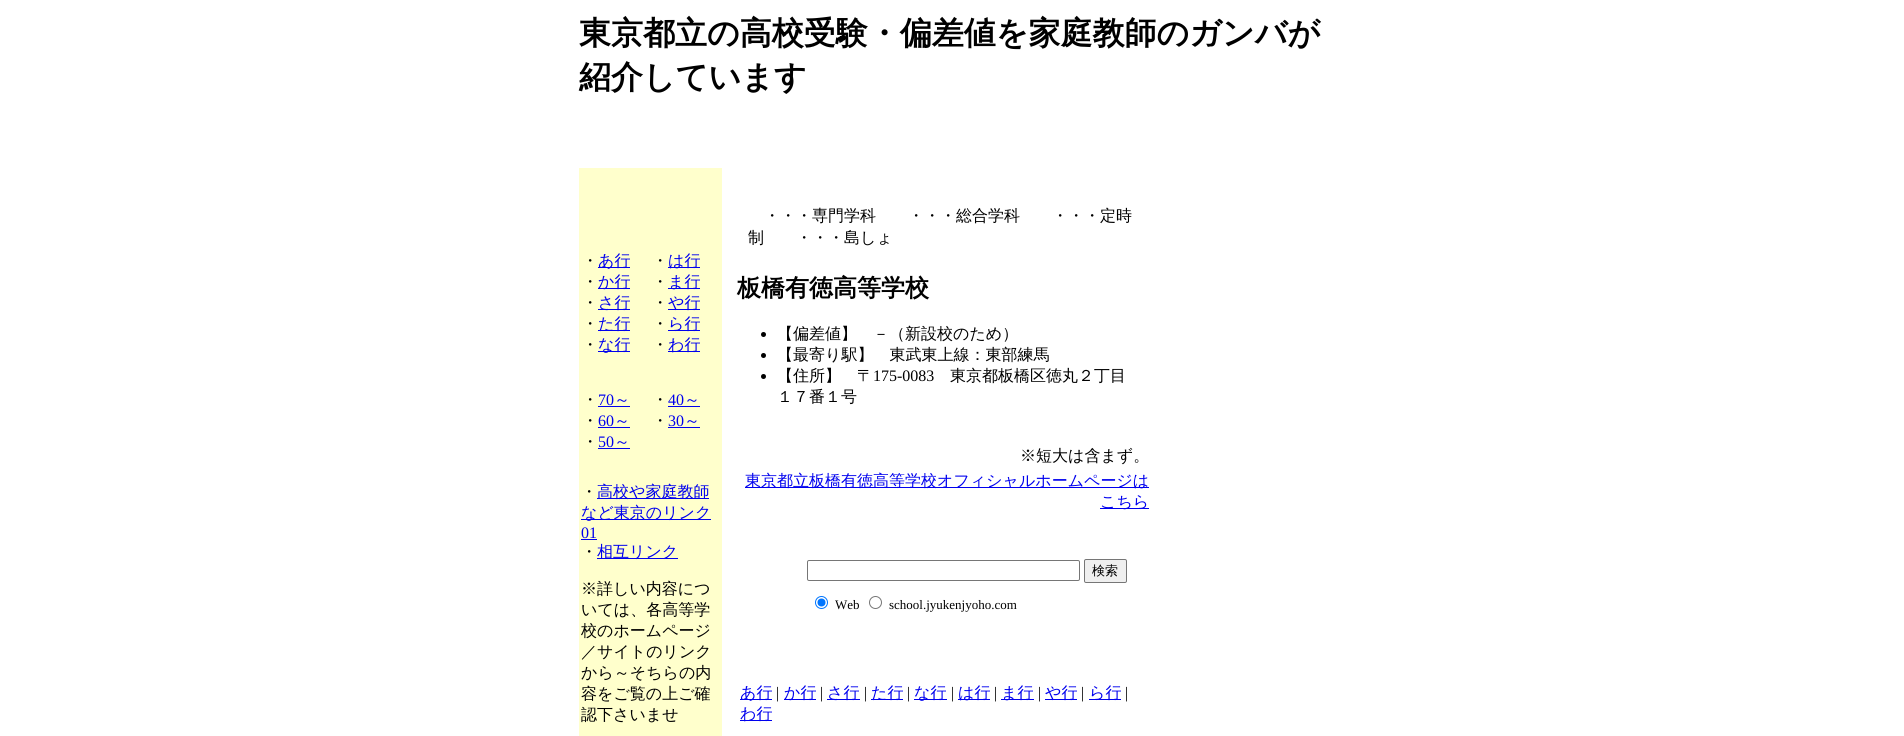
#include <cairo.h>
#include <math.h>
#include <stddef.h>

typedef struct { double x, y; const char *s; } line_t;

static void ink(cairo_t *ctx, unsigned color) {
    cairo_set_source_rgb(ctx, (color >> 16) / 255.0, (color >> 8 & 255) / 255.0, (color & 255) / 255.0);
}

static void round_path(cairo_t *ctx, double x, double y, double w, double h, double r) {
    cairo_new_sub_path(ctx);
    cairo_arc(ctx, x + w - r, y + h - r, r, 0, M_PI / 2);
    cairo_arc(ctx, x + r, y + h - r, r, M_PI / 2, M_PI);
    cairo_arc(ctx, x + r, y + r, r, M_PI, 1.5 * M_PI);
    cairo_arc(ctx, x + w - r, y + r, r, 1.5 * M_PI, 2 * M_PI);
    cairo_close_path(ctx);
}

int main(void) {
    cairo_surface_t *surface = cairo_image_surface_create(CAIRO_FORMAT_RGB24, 1904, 736);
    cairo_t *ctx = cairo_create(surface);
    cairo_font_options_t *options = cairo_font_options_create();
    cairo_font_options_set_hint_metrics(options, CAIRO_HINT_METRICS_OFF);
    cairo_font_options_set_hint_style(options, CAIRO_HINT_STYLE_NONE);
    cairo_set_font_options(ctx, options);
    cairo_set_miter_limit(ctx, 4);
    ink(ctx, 0xFFFFFF);
    cairo_paint(ctx);
    cairo_select_font_face(ctx, "WenQuanYi Zen Hei", CAIRO_FONT_SLANT_NORMAL, CAIRO_FONT_WEIGHT_BOLD);
    cairo_set_font_size(ctx, 32);
    ink(ctx, 0x000000);
    cairo_move_to(ctx, 579, 44);
    cairo_show_text(ctx, "東京都立の高校受験・偏差値を家庭教師のガンバが");
    cairo_move_to(ctx, 579, 88);
    cairo_show_text(ctx, "紹介しています");
    ink(ctx, 0xFFFFCC);
    cairo_rectangle(ctx, 579, 168, 143, 568);
    cairo_fill(ctx);
    cairo_select_font_face(ctx, "WenQuanYi Zen Hei Medium", CAIRO_FONT_SLANT_NORMAL, CAIRO_FONT_WEIGHT_NORMAL);
    cairo_set_font_size(ctx, 16);
    ink(ctx, 0x000000);
    cairo_move_to(ctx, 582, 266);
    cairo_show_text(ctx, "・");
    ink(ctx, 0x0000EE);
    cairo_rectangle(ctx, 598, 267, 32, 1);
    cairo_fill(ctx);
    cairo_move_to(ctx, 598, 266);
    cairo_show_text(ctx, "あ行");
    ink(ctx, 0x000000);
    cairo_move_to(ctx, 582, 287);
    cairo_show_text(ctx, "・");
    ink(ctx, 0x0000EE);
    cairo_rectangle(ctx, 598, 288, 32, 1);
    cairo_fill(ctx);
    cairo_move_to(ctx, 598, 287);
    cairo_show_text(ctx, "か行");
    ink(ctx, 0x000000);
    cairo_move_to(ctx, 582, 308);
    cairo_show_text(ctx, "・");
    ink(ctx, 0x0000EE);
    cairo_rectangle(ctx, 598, 309, 32, 1);
    cairo_fill(ctx);
    cairo_move_to(ctx, 598, 308);
    cairo_show_text(ctx, "さ行");
    ink(ctx, 0x000000);
    cairo_move_to(ctx, 582, 329);
    cairo_show_text(ctx, "・");
    ink(ctx, 0x0000EE);
    cairo_rectangle(ctx, 598, 330, 32, 1);
    cairo_fill(ctx);
    cairo_move_to(ctx, 598, 329);
    cairo_show_text(ctx, "た行");
    ink(ctx, 0x000000);
    cairo_move_to(ctx, 582, 350);
    cairo_show_text(ctx, "・");
    ink(ctx, 0x0000EE);
    cairo_rectangle(ctx, 598, 351, 32, 1);
    cairo_fill(ctx);
    cairo_move_to(ctx, 598, 350);
    cairo_show_text(ctx, "な行");
    ink(ctx, 0x000000);
    cairo_move_to(ctx, 652, 266);
    cairo_show_text(ctx, "・");
    ink(ctx, 0x0000EE);
    cairo_rectangle(ctx, 668, 267, 32, 1);
    cairo_fill(ctx);
    cairo_move_to(ctx, 668, 266);
    cairo_show_text(ctx, "は行");
    ink(ctx, 0x000000);
    cairo_move_to(ctx, 652, 287);
    cairo_show_text(ctx, "・");
    ink(ctx, 0x0000EE);
    cairo_rectangle(ctx, 668, 288, 32, 1);
    cairo_fill(ctx);
    cairo_move_to(ctx, 668, 287);
    cairo_show_text(ctx, "ま行");
    ink(ctx, 0x000000);
    cairo_move_to(ctx, 652, 308);
    cairo_show_text(ctx, "・");
    ink(ctx, 0x0000EE);
    cairo_rectangle(ctx, 668, 309, 32, 1);
    cairo_fill(ctx);
    cairo_move_to(ctx, 668, 308);
    cairo_show_text(ctx, "や行");
    ink(ctx, 0x000000);
    cairo_move_to(ctx, 652, 329);
    cairo_show_text(ctx, "・");
    ink(ctx, 0x0000EE);
    cairo_rectangle(ctx, 668, 330, 32, 1);
    cairo_fill(ctx);
    cairo_move_to(ctx, 668, 329);
    cairo_show_text(ctx, "ら行");
    ink(ctx, 0x000000);
    cairo_move_to(ctx, 652, 350);
    cairo_show_text(ctx, "・");
    ink(ctx, 0x0000EE);
    cairo_rectangle(ctx, 668, 351, 32, 1);
    cairo_fill(ctx);
    cairo_move_to(ctx, 668, 350);
    cairo_show_text(ctx, "わ行");
    ink(ctx, 0x000000);
    cairo_move_to(ctx, 582, 405);
    cairo_show_text(ctx, "・");
    cairo_select_font_face(ctx, "Liberation Serif", CAIRO_FONT_SLANT_NORMAL, CAIRO_FONT_WEIGHT_NORMAL);
    ink(ctx, 0x0000EE);
    cairo_move_to(ctx, 598, 405);
    cairo_show_text(ctx, "70");
    cairo_select_font_face(ctx, "WenQuanYi Zen Hei Medium", CAIRO_FONT_SLANT_NORMAL, CAIRO_FONT_WEIGHT_NORMAL);
    cairo_move_to(ctx, 614, 405);
    cairo_show_text(ctx, "～");
    cairo_rectangle(ctx, 598, 406, 32, 1);
    cairo_fill(ctx);
    ink(ctx, 0x000000);
    cairo_move_to(ctx, 582, 426);
    cairo_show_text(ctx, "・");
    cairo_select_font_face(ctx, "Liberation Serif", CAIRO_FONT_SLANT_NORMAL, CAIRO_FONT_WEIGHT_NORMAL);
    ink(ctx, 0x0000EE);
    cairo_move_to(ctx, 598, 426);
    cairo_show_text(ctx, "60");
    cairo_select_font_face(ctx, "WenQuanYi Zen Hei Medium", CAIRO_FONT_SLANT_NORMAL, CAIRO_FONT_WEIGHT_NORMAL);
    cairo_move_to(ctx, 614, 426);
    cairo_show_text(ctx, "～");
    cairo_rectangle(ctx, 598, 427, 32, 1);
    cairo_fill(ctx);
    ink(ctx, 0x000000);
    cairo_move_to(ctx, 582, 447);
    cairo_show_text(ctx, "・");
    cairo_select_font_face(ctx, "Liberation Serif", CAIRO_FONT_SLANT_NORMAL, CAIRO_FONT_WEIGHT_NORMAL);
    ink(ctx, 0x0000EE);
    cairo_move_to(ctx, 598, 447);
    cairo_show_text(ctx, "50");
    cairo_select_font_face(ctx, "WenQuanYi Zen Hei Medium", CAIRO_FONT_SLANT_NORMAL, CAIRO_FONT_WEIGHT_NORMAL);
    cairo_move_to(ctx, 614, 447);
    cairo_show_text(ctx, "～");
    cairo_rectangle(ctx, 598, 448, 32, 1);
    cairo_fill(ctx);
    ink(ctx, 0x000000);
    cairo_move_to(ctx, 652, 405);
    cairo_show_text(ctx, "・");
    cairo_select_font_face(ctx, "Liberation Serif", CAIRO_FONT_SLANT_NORMAL, CAIRO_FONT_WEIGHT_NORMAL);
    ink(ctx, 0x0000EE);
    cairo_move_to(ctx, 668, 405);
    cairo_show_text(ctx, "40");
    cairo_select_font_face(ctx, "WenQuanYi Zen Hei Medium", CAIRO_FONT_SLANT_NORMAL, CAIRO_FONT_WEIGHT_NORMAL);
    cairo_move_to(ctx, 684, 405);
    cairo_show_text(ctx, "～");
    cairo_rectangle(ctx, 668, 406, 32, 1);
    cairo_fill(ctx);
    ink(ctx, 0x000000);
    cairo_move_to(ctx, 652, 426);
    cairo_show_text(ctx, "・");
    cairo_select_font_face(ctx, "Liberation Serif", CAIRO_FONT_SLANT_NORMAL, CAIRO_FONT_WEIGHT_NORMAL);
    ink(ctx, 0x0000EE);
    cairo_move_to(ctx, 668, 426);
    cairo_show_text(ctx, "30");
    cairo_select_font_face(ctx, "WenQuanYi Zen Hei Medium", CAIRO_FONT_SLANT_NORMAL, CAIRO_FONT_WEIGHT_NORMAL);
    cairo_move_to(ctx, 684, 426);
    cairo_show_text(ctx, "～");
    cairo_rectangle(ctx, 668, 427, 32, 1);
    cairo_fill(ctx);
    ink(ctx, 0x000000);
    cairo_move_to(ctx, 581, 497);
    cairo_show_text(ctx, "・");
    ink(ctx, 0x0000EE);
    cairo_rectangle(ctx, 597, 498, 112, 1);
    cairo_fill(ctx);
    cairo_move_to(ctx, 597, 497);
    cairo_show_text(ctx, "高校や家庭教師");
    cairo_rectangle(ctx, 581, 519, 130, 1);
    cairo_fill(ctx);
    cairo_move_to(ctx, 581, 518);
    cairo_show_text(ctx, "など東京のリンク");
    cairo_select_font_face(ctx, "Liberation Serif", CAIRO_FONT_SLANT_NORMAL, CAIRO_FONT_WEIGHT_NORMAL);
    cairo_move_to(ctx, 581, 538);
    cairo_show_text(ctx, "01");
    cairo_rectangle(ctx, 581, 539, 16, 1);
    cairo_fill(ctx);
    cairo_select_font_face(ctx, "WenQuanYi Zen Hei Medium", CAIRO_FONT_SLANT_NORMAL, CAIRO_FONT_WEIGHT_NORMAL);
    ink(ctx, 0x000000);
    cairo_move_to(ctx, 581, 557);
    cairo_show_text(ctx, "・");
    ink(ctx, 0x0000EE);
    cairo_rectangle(ctx, 597, 558, 81, 1);
    cairo_fill(ctx);
    cairo_move_to(ctx, 597, 557);
    cairo_show_text(ctx, "相互リンク");
    ink(ctx, 0x000000);
    {
        static const line_t items[] = {
            {581, 594, "※詳しい内容につ"},
            {581, 615, "いては、各高等学"},
            {581, 636, "校のホームページ"},
            {581, 657, "／サイトのリンク"},
            {581, 678, "から～そちらの内"},
            {581, 699, "容をご覧の上ご確"},
            {581, 720, "認下さいませ"},
            {764, 221, "・・・専門学科"},
            {908, 221, "・・・総合学科"},
            {1052, 221, "・・・定時"},
            {748, 243, "制"},
            {796, 243, "・・・島しょ"},
        };
        for (size_t i = 0; i < sizeof items / sizeof *items; i++) {
            cairo_move_to(ctx, items[i].x, items[i].y);
            cairo_show_text(ctx, items[i].s);
        }
    }
    cairo_select_font_face(ctx, "WenQuanYi Zen Hei", CAIRO_FONT_SLANT_NORMAL, CAIRO_FONT_WEIGHT_BOLD);
    cairo_set_font_size(ctx, 24);
    cairo_move_to(ctx, 737, 296);
    cairo_show_text(ctx, "板橋有徳高等学校");
    cairo_new_path(ctx);
    cairo_arc(ctx, 763.5, 334.5, 2.5, 0, 2 * M_PI);
    cairo_fill(ctx);
    cairo_select_font_face(ctx, "WenQuanYi Zen Hei Medium", CAIRO_FONT_SLANT_NORMAL, CAIRO_FONT_WEIGHT_NORMAL);
    cairo_set_font_size(ctx, 16);
    cairo_move_to(ctx, 777, 339);
    cairo_show_text(ctx, "【偏差値】　－（新設校のため）");
    cairo_new_path(ctx);
    cairo_arc(ctx, 763.5, 355.5, 2.5, 0, 2 * M_PI);
    cairo_fill(ctx);
    cairo_move_to(ctx, 777, 360);
    cairo_show_text(ctx, "【最寄り駅】　東武東上線：東部練馬");
    cairo_new_path(ctx);
    cairo_arc(ctx, 763.5, 376.5, 2.5, 0, 2 * M_PI);
    cairo_fill(ctx);
    cairo_move_to(ctx, 777, 381);
    cairo_show_text(ctx, "【住所】　〒");
    cairo_select_font_face(ctx, "Liberation Serif", CAIRO_FONT_SLANT_NORMAL, CAIRO_FONT_WEIGHT_NORMAL);
    cairo_move_to(ctx, 873, 381);
    cairo_show_text(ctx, "175-0083");
    cairo_select_font_face(ctx, "WenQuanYi Zen Hei Medium", CAIRO_FONT_SLANT_NORMAL, CAIRO_FONT_WEIGHT_NORMAL);
    {
        static const line_t items[] = {
            {950, 381, "東京都板橋区徳丸２丁目"},
            {777, 402, "１７番１号"},
            {1020, 461, "※短大は含まず。"},
        };
        for (size_t i = 0; i < sizeof items / sizeof *items; i++) {
            cairo_move_to(ctx, items[i].x, items[i].y);
            cairo_show_text(ctx, items[i].s);
        }
    }
    ink(ctx, 0x0000EE);
    cairo_rectangle(ctx, 745, 487, 404, 1);
    cairo_fill(ctx);
    cairo_move_to(ctx, 745, 486);
    cairo_show_text(ctx, "東京都立板橋有徳高等学校オフィシャルホームページは");
    cairo_rectangle(ctx, 1100, 508, 49, 1);
    cairo_fill(ctx);
    cairo_move_to(ctx, 1100, 507);
    cairo_show_text(ctx, "こちら");
    round_path(ctx, 807.5, 560.5, 272, 20, 1.5);
    ink(ctx, 0x767676);
    cairo_set_line_width(ctx, 1);
    cairo_stroke(ctx);
    ink(ctx, 0xEFEFEF);
    round_path(ctx, 1084.5, 559.5, 42, 23, 1.5);
    cairo_fill_preserve(ctx);
    ink(ctx, 0x767676);
    cairo_stroke(ctx);
    cairo_set_font_size(ctx, 13);
    ink(ctx, 0x000000);
    cairo_move_to(ctx, 1092, 575);
    cairo_show_text(ctx, "検索");
    cairo_new_path(ctx);
    cairo_arc(ctx, 821.5, 602.5, 6, 0, 2 * M_PI);
    ink(ctx, 0x0075FF);
    cairo_stroke(ctx);
    cairo_arc(ctx, 821.5, 602.5, 4, 0, 2 * M_PI);
    cairo_fill(ctx);
    cairo_select_font_face(ctx, "Liberation Serif", CAIRO_FONT_SLANT_NORMAL, CAIRO_FONT_WEIGHT_NORMAL);
    ink(ctx, 0x000000);
    cairo_move_to(ctx, 835, 609);
    cairo_show_text(ctx, "Web");
    cairo_new_path(ctx);
    cairo_arc(ctx, 875.5, 602.5, 6, 0, 2 * M_PI);
    ink(ctx, 0x767676);
    cairo_stroke(ctx);
    ink(ctx, 0x000000);
    cairo_move_to(ctx, 889, 609);
    cairo_show_text(ctx, "school.jyukenjyoho.com");
    ink(ctx, 0x0000EE);
    cairo_rectangle(ctx, 740, 699, 32, 1);
    cairo_fill(ctx);
    cairo_select_font_face(ctx, "WenQuanYi Zen Hei Medium", CAIRO_FONT_SLANT_NORMAL, CAIRO_FONT_WEIGHT_NORMAL);
    cairo_set_font_size(ctx, 16);
    cairo_move_to(ctx, 740, 698);
    cairo_show_text(ctx, "あ行");
    cairo_select_font_face(ctx, "Liberation Serif", CAIRO_FONT_SLANT_NORMAL, CAIRO_FONT_WEIGHT_NORMAL);
    ink(ctx, 0x000000);
    cairo_move_to(ctx, 776, 698);
    cairo_show_text(ctx, "|");
    ink(ctx, 0x0000EE);
    cairo_rectangle(ctx, 784, 699, 32, 1);
    cairo_fill(ctx);
    cairo_select_font_face(ctx, "WenQuanYi Zen Hei Medium", CAIRO_FONT_SLANT_NORMAL, CAIRO_FONT_WEIGHT_NORMAL);
    cairo_move_to(ctx, 784, 698);
    cairo_show_text(ctx, "か行");
    cairo_select_font_face(ctx, "Liberation Serif", CAIRO_FONT_SLANT_NORMAL, CAIRO_FONT_WEIGHT_NORMAL);
    ink(ctx, 0x000000);
    cairo_move_to(ctx, 820, 698);
    cairo_show_text(ctx, "|");
    ink(ctx, 0x0000EE);
    cairo_rectangle(ctx, 827, 699, 33, 1);
    cairo_fill(ctx);
    cairo_select_font_face(ctx, "WenQuanYi Zen Hei Medium", CAIRO_FONT_SLANT_NORMAL, CAIRO_FONT_WEIGHT_NORMAL);
    cairo_move_to(ctx, 827, 698);
    cairo_show_text(ctx, "さ行");
    cairo_select_font_face(ctx, "Liberation Serif", CAIRO_FONT_SLANT_NORMAL, CAIRO_FONT_WEIGHT_NORMAL);
    ink(ctx, 0x000000);
    cairo_move_to(ctx, 864, 698);
    cairo_show_text(ctx, "|");
    ink(ctx, 0x0000EE);
    cairo_rectangle(ctx, 871, 699, 32, 1);
    cairo_fill(ctx);
    cairo_select_font_face(ctx, "WenQuanYi Zen Hei Medium", CAIRO_FONT_SLANT_NORMAL, CAIRO_FONT_WEIGHT_NORMAL);
    cairo_move_to(ctx, 871, 698);
    cairo_show_text(ctx, "た行");
    cairo_select_font_face(ctx, "Liberation Serif", CAIRO_FONT_SLANT_NORMAL, CAIRO_FONT_WEIGHT_NORMAL);
    ink(ctx, 0x000000);
    cairo_move_to(ctx, 907, 698);
    cairo_show_text(ctx, "|");
    ink(ctx, 0x0000EE);
    cairo_rectangle(ctx, 914, 699, 33, 1);
    cairo_fill(ctx);
    cairo_select_font_face(ctx, "WenQuanYi Zen Hei Medium", CAIRO_FONT_SLANT_NORMAL, CAIRO_FONT_WEIGHT_NORMAL);
    cairo_move_to(ctx, 914, 698);
    cairo_show_text(ctx, "な行");
    cairo_select_font_face(ctx, "Liberation Serif", CAIRO_FONT_SLANT_NORMAL, CAIRO_FONT_WEIGHT_NORMAL);
    ink(ctx, 0x000000);
    cairo_move_to(ctx, 951, 698);
    cairo_show_text(ctx, "|");
    ink(ctx, 0x0000EE);
    cairo_rectangle(ctx, 958, 699, 32, 1);
    cairo_fill(ctx);
    cairo_select_font_face(ctx, "WenQuanYi Zen Hei Medium", CAIRO_FONT_SLANT_NORMAL, CAIRO_FONT_WEIGHT_NORMAL);
    cairo_move_to(ctx, 958, 698);
    cairo_show_text(ctx, "は行");
    cairo_select_font_face(ctx, "Liberation Serif", CAIRO_FONT_SLANT_NORMAL, CAIRO_FONT_WEIGHT_NORMAL);
    ink(ctx, 0x000000);
    cairo_move_to(ctx, 994, 698);
    cairo_show_text(ctx, "|");
    ink(ctx, 0x0000EE);
    cairo_rectangle(ctx, 1001, 699, 33, 1);
    cairo_fill(ctx);
    cairo_select_font_face(ctx, "WenQuanYi Zen Hei Medium", CAIRO_FONT_SLANT_NORMAL, CAIRO_FONT_WEIGHT_NORMAL);
    cairo_move_to(ctx, 1001, 698);
    cairo_show_text(ctx, "ま行");
    cairo_select_font_face(ctx, "Liberation Serif", CAIRO_FONT_SLANT_NORMAL, CAIRO_FONT_WEIGHT_NORMAL);
    ink(ctx, 0x000000);
    cairo_move_to(ctx, 1038, 698);
    cairo_show_text(ctx, "|");
    ink(ctx, 0x0000EE);
    cairo_rectangle(ctx, 1045, 699, 32, 1);
    cairo_fill(ctx);
    cairo_select_font_face(ctx, "WenQuanYi Zen Hei Medium", CAIRO_FONT_SLANT_NORMAL, CAIRO_FONT_WEIGHT_NORMAL);
    cairo_move_to(ctx, 1045, 698);
    cairo_show_text(ctx, "や行");
    cairo_select_font_face(ctx, "Liberation Serif", CAIRO_FONT_SLANT_NORMAL, CAIRO_FONT_WEIGHT_NORMAL);
    ink(ctx, 0x000000);
    cairo_move_to(ctx, 1081, 698);
    cairo_show_text(ctx, "|");
    ink(ctx, 0x0000EE);
    cairo_rectangle(ctx, 1089, 699, 32, 1);
    cairo_fill(ctx);
    cairo_select_font_face(ctx, "WenQuanYi Zen Hei Medium", CAIRO_FONT_SLANT_NORMAL, CAIRO_FONT_WEIGHT_NORMAL);
    cairo_move_to(ctx, 1089, 698);
    cairo_show_text(ctx, "ら行");
    cairo_select_font_face(ctx, "Liberation Serif", CAIRO_FONT_SLANT_NORMAL, CAIRO_FONT_WEIGHT_NORMAL);
    ink(ctx, 0x000000);
    cairo_move_to(ctx, 1125, 698);
    cairo_show_text(ctx, "|");
    ink(ctx, 0x0000EE);
    cairo_rectangle(ctx, 740, 720, 32, 1);
    cairo_fill(ctx);
    cairo_select_font_face(ctx, "WenQuanYi Zen Hei Medium", CAIRO_FONT_SLANT_NORMAL, CAIRO_FONT_WEIGHT_NORMAL);
    cairo_move_to(ctx, 740, 719);
    cairo_show_text(ctx, "わ行");
    cairo_surface_write_to_png(surface, "image.png");
    cairo_font_options_destroy(options);
    cairo_destroy(ctx);
    cairo_surface_destroy(surface);
    return 0;
}
